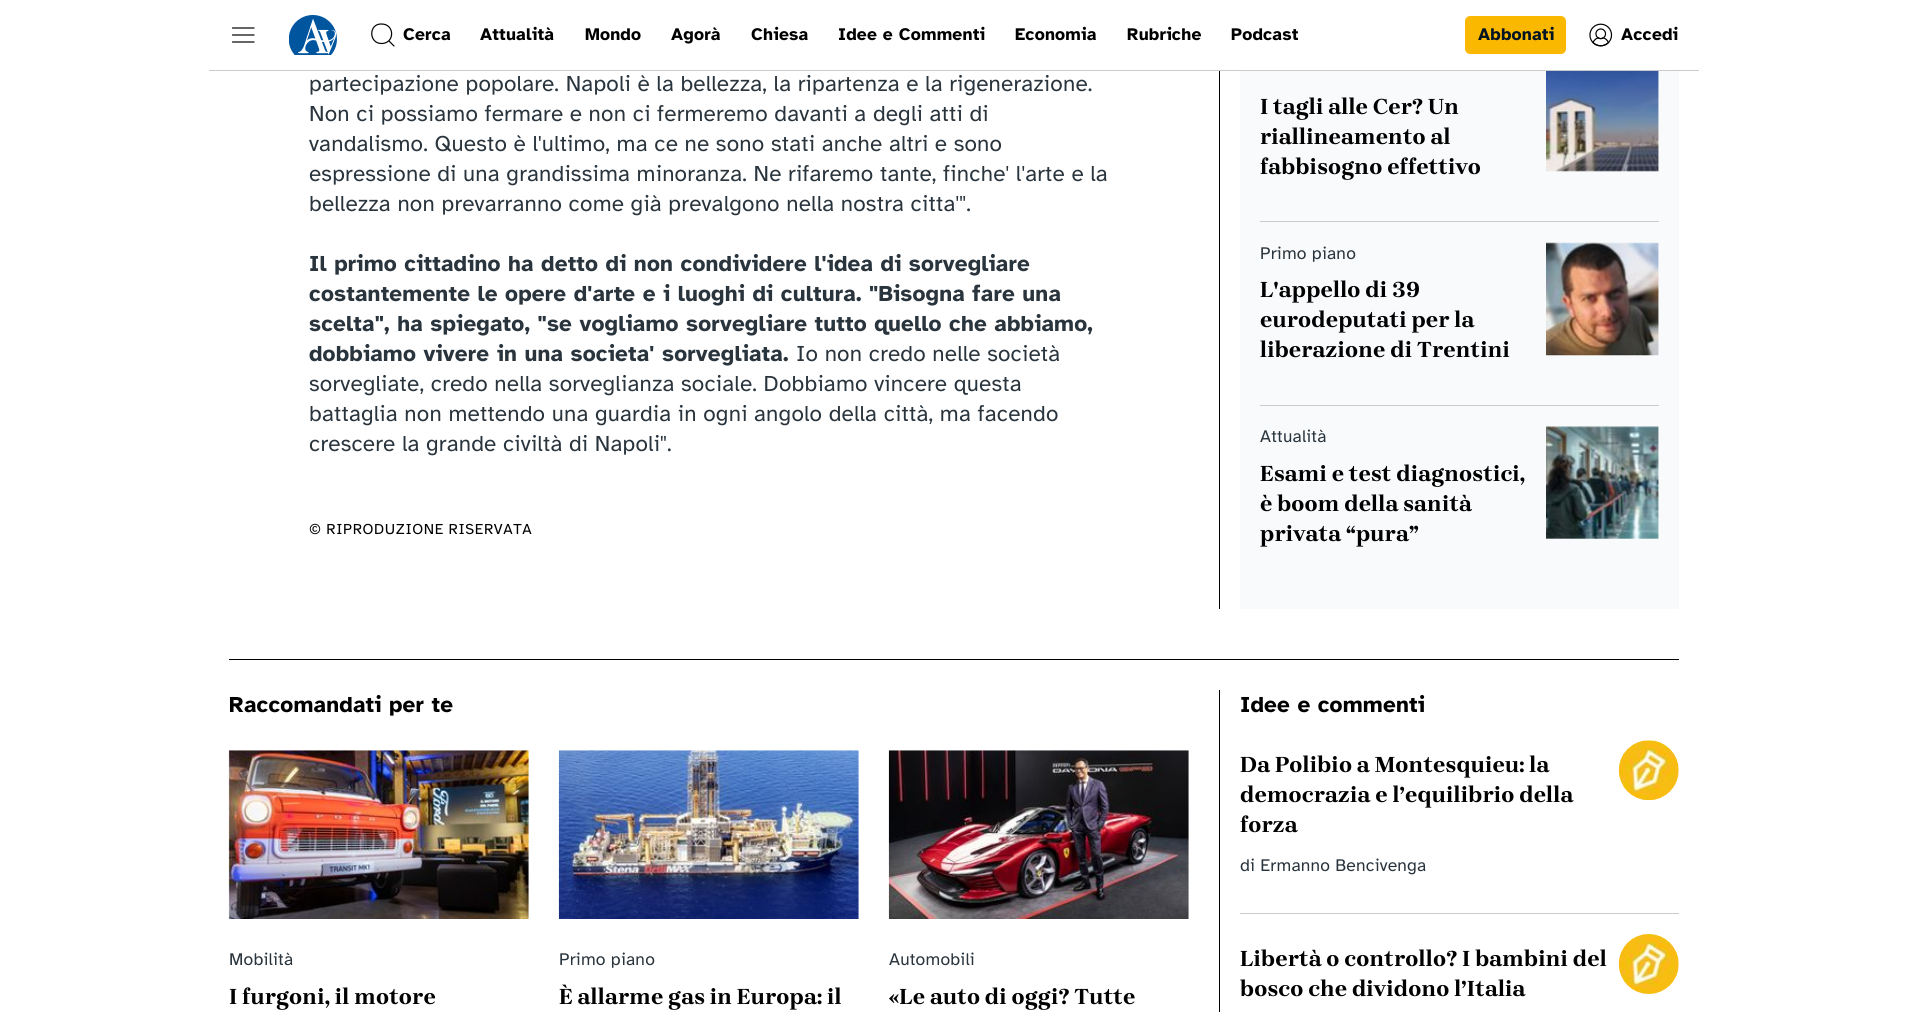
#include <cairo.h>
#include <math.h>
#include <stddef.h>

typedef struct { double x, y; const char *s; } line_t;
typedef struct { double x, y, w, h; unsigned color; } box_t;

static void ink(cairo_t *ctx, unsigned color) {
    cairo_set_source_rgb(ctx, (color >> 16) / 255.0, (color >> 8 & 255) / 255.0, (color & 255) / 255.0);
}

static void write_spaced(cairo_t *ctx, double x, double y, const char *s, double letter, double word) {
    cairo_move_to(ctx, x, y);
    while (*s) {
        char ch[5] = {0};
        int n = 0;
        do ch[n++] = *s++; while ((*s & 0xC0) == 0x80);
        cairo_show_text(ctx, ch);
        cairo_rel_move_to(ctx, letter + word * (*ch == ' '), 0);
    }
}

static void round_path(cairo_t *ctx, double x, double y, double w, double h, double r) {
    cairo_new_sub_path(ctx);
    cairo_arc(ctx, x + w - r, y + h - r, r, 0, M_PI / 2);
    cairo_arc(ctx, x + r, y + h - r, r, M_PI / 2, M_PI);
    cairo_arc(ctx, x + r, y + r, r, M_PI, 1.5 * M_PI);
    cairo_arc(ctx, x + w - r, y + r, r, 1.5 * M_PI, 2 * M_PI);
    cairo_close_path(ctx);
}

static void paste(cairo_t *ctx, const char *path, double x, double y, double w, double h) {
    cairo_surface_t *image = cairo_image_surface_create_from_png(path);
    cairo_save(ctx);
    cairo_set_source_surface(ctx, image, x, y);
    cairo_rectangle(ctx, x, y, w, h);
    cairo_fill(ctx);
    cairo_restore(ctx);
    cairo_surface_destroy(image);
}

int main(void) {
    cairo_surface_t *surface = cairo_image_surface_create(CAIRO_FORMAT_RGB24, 1907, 1012);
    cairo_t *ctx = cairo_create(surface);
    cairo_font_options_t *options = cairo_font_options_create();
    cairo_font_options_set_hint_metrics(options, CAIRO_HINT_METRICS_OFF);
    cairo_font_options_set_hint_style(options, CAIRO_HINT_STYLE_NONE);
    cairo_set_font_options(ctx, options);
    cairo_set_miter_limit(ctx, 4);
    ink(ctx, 0xFFFFFF);
    cairo_paint(ctx);
    ink(ctx, 0xC8CACD);
    cairo_rectangle(ctx, 209, 70, 1490, 1);
    cairo_fill(ctx);
    cairo_new_path(ctx);
    cairo_move_to(ctx, 232.5, 35);
    cairo_line_to(ctx, 254, 35);
    cairo_move_to(ctx, 232.5, 28);
    cairo_line_to(ctx, 254, 28);
    cairo_move_to(ctx, 232.5, 42);
    cairo_line_to(ctx, 254, 42);
    ink(ctx, 0x000000);
    cairo_set_line_width(ctx, 1.2);
    cairo_set_line_cap(ctx, CAIRO_LINE_CAP_ROUND);
    cairo_set_line_join(ctx, CAIRO_LINE_JOIN_ROUND);
    cairo_stroke(ctx);
    paste(ctx, "media/1.png", 289, 15, 48, 40);
    cairo_new_path(ctx);
    cairo_move_to(ctx, 394, 46);
    cairo_line_to(ctx, 389, 41);
    cairo_move_to(ctx, 381.5, 43.5);
    cairo_curve_to(ctx, 395, 43.5, 395, 24, 381.5, 24);
    cairo_curve_to(ctx, 368.5, 23.5, 368.5, 43.5, 381.5, 43.5);
    cairo_close_path(ctx);
    cairo_stroke(ctx);
    cairo_select_font_face(ctx, "Atkinson Hyperlegible", CAIRO_FONT_SLANT_NORMAL, CAIRO_FONT_WEIGHT_BOLD);
    cairo_set_font_size(ctx, 17.5);
    {
        static const line_t items[] = {
            {403, 40, "Cerca"},
            {480, 40, "Attualità"},
            {585, 40, "Mondo"},
            {671, 40, "Agorà"},
            {751, 40, "Chiesa"},
            {838, 40, "Idee e Commenti"},
            {1015, 40, "Economia"},
            {1127, 40, "Rubriche"},
            {1231, 40, "Podcast"},
        };
        for (size_t i = 0; i < sizeof items / sizeof *items; i++) {
            write_spaced(ctx, items[i].x, items[i].y, items[i].s, 0.2, 0);
        }
    }
    ink(ctx, 0xFAB800);
    round_path(ctx, 1466.5, 17.5, 98, 35, 3.5);
    cairo_fill_preserve(ctx);
    cairo_set_line_width(ctx, 3);
    cairo_set_line_cap(ctx, CAIRO_LINE_CAP_BUTT);
    cairo_set_line_join(ctx, CAIRO_LINE_JOIN_MITER);
    cairo_stroke(ctx);
    ink(ctx, 0x001323);
    write_spaced(ctx, 1478, 40, "Abbonati", 0.2, 0);
    paste(ctx, "media/2.png", 1589, 23, 24, 24);
    ink(ctx, 0x000000);
    write_spaced(ctx, 1621, 40, "Accedi", 0.2, 0);
    cairo_select_font_face(ctx, "Atkinson Hyperlegible", CAIRO_FONT_SLANT_NORMAL, CAIRO_FONT_WEIGHT_NORMAL);
    cairo_set_font_size(ctx, 22.5);
    ink(ctx, 0x29343D);
    {
        static const line_t items[] = {
            {309, 91, "partecipazione popolare. Napoli è la bellezza, la ripartenza e la rigenerazione."},
            {309, 121, "Non ci possiamo fermare e non ci fermeremo davanti a degli atti di"},
            {309, 151, "vandalismo. Questo è l'ultimo, ma ce ne sono stati anche altri e sono"},
            {309, 181, "espressione di una grandissima minoranza. Ne rifaremo tante, finche' l'arte e la"},
            {309, 211, "bellezza non prevarranno come già prevalgono nella nostra citta'\"."},
        };
        for (size_t i = 0; i < sizeof items / sizeof *items; i++) {
            write_spaced(ctx, items[i].x, items[i].y, items[i].s, 0.2, 0);
        }
    }
    cairo_select_font_face(ctx, "Atkinson Hyperlegible", CAIRO_FONT_SLANT_NORMAL, CAIRO_FONT_WEIGHT_BOLD);
    {
        static const line_t items[] = {
            {309, 271, "Il primo cittadino ha detto di non condividere l'idea di sorvegliare"},
            {309, 301, "costantemente le opere d'arte e i luoghi di cultura. \"Bisogna fare una"},
            {309, 331, "scelta\", ha spiegato, \"se vogliamo sorvegliare tutto quello che abbiamo,"},
            {309, 361, "dobbiamo vivere in una societa' sorvegliata."},
        };
        for (size_t i = 0; i < sizeof items / sizeof *items; i++) {
            write_spaced(ctx, items[i].x, items[i].y, items[i].s, 0.2, 0);
        }
    }
    cairo_select_font_face(ctx, "Atkinson Hyperlegible", CAIRO_FONT_SLANT_NORMAL, CAIRO_FONT_WEIGHT_NORMAL);
    {
        static const line_t items[] = {
            {796, 361, "Io non credo nelle società"},
            {309, 391, "sorvegliate, credo nella sorveglianza sociale. Dobbiamo vincere questa"},
            {309, 421, "battaglia non mettendo una guardia in ogni angolo della città, ma facendo"},
            {309, 451, "crescere la grande civiltà di Napoli\"."},
        };
        for (size_t i = 0; i < sizeof items / sizeof *items; i++) {
            write_spaced(ctx, items[i].x, items[i].y, items[i].s, 0.2, 0);
        }
    }
    cairo_set_font_size(ctx, 15);
    ink(ctx, 0x000000);
    write_spaced(ctx, 309, 534, "© RIPRODUZIONE RISERVATA", 0.6, 0);
    {
        static const box_t items[] = {
            {1219, 71, 1, 538, 0x000000},
            {1240, 71, 439, 538, 0xF9FAFB},
            {1260, 221, 399, 1, 0xC8CACD},
        };
        for (size_t i = 0; i < sizeof items / sizeof *items; i++) {
            ink(ctx, items[i].color);
            cairo_rectangle(ctx, items[i].x, items[i].y, items[i].w, items[i].h);
            cairo_fill(ctx);
        }
    }
    cairo_select_font_face(ctx, "Brygada 1918", CAIRO_FONT_SLANT_NORMAL, CAIRO_FONT_WEIGHT_BOLD);
    cairo_set_font_size(ctx, 22.5);
    ink(ctx, 0x000000);
    {
        static const line_t items[] = {
            {1260, 114, "I tagli alle Cer? Un"},
            {1260, 144, "riallineamento al"},
            {1260, 174, "fabbisogno effettivo"},
        };
        for (size_t i = 0; i < sizeof items / sizeof *items; i++) {
            write_spaced(ctx, items[i].x, items[i].y, items[i].s, 0.2, 0);
        }
    }
    paste(ctx, "media/3.png", 1546, 71, 113, 101);
    ink(ctx, 0xC8CACD);
    cairo_rectangle(ctx, 1260, 405, 399, 1);
    cairo_fill(ctx);
    cairo_select_font_face(ctx, "Atkinson Hyperlegible", CAIRO_FONT_SLANT_NORMAL, CAIRO_FONT_WEIGHT_NORMAL);
    cairo_set_font_size(ctx, 17.5);
    ink(ctx, 0x29343D);
    write_spaced(ctx, 1260, 259, "Primo piano", 0.2, 0);
    cairo_select_font_face(ctx, "Brygada 1918", CAIRO_FONT_SLANT_NORMAL, CAIRO_FONT_WEIGHT_BOLD);
    cairo_set_font_size(ctx, 22.5);
    ink(ctx, 0x000000);
    {
        static const line_t items[] = {
            {1260, 297, "L'appello di 39"},
            {1260, 327, "eurodeputati per la"},
            {1260, 357, "liberazione di Trentini"},
        };
        for (size_t i = 0; i < sizeof items / sizeof *items; i++) {
            write_spaced(ctx, items[i].x, items[i].y, items[i].s, 0.2, 0);
        }
    }
    paste(ctx, "media/4.png", 1546, 242, 113, 114);
    cairo_select_font_face(ctx, "Atkinson Hyperlegible", CAIRO_FONT_SLANT_NORMAL, CAIRO_FONT_WEIGHT_NORMAL);
    cairo_set_font_size(ctx, 17.5);
    ink(ctx, 0x29343D);
    write_spaced(ctx, 1260, 442, "Attualità", 0.2, 0);
    cairo_select_font_face(ctx, "Brygada 1918", CAIRO_FONT_SLANT_NORMAL, CAIRO_FONT_WEIGHT_BOLD);
    cairo_set_font_size(ctx, 22.5);
    ink(ctx, 0x000000);
    {
        static const line_t items[] = {
            {1260, 481, "Esami e test diagnostici,"},
            {1260, 511, "è boom della sanità"},
            {1260, 541, "privata “pura”"},
        };
        for (size_t i = 0; i < sizeof items / sizeof *items; i++) {
            write_spaced(ctx, items[i].x, items[i].y, items[i].s, 0.2, 0);
        }
    }
    paste(ctx, "media/5.png", 1546, 426, 113, 113);
    cairo_rectangle(ctx, 229, 659, 1450, 1);
    cairo_fill(ctx);
    cairo_select_font_face(ctx, "Atkinson Hyperlegible", CAIRO_FONT_SLANT_NORMAL, CAIRO_FONT_WEIGHT_BOLD);
    write_spaced(ctx, 229, 712, "Raccomandati per te", 0.2, 0);
    paste(ctx, "media/6.png", 228, 750, 301, 169);
    cairo_select_font_face(ctx, "Atkinson Hyperlegible", CAIRO_FONT_SLANT_NORMAL, CAIRO_FONT_WEIGHT_NORMAL);
    cairo_set_font_size(ctx, 17.5);
    ink(ctx, 0x29343D);
    write_spaced(ctx, 229, 965, "Mobilità", 0.2, 0);
    cairo_select_font_face(ctx, "Brygada 1918", CAIRO_FONT_SLANT_NORMAL, CAIRO_FONT_WEIGHT_BOLD);
    cairo_set_font_size(ctx, 22.5);
    ink(ctx, 0x000000);
    write_spaced(ctx, 229, 1004, "I furgoni, il motore", 0.2, 0);
    paste(ctx, "media/7.png", 558, 750, 301, 169);
    cairo_select_font_face(ctx, "Atkinson Hyperlegible", CAIRO_FONT_SLANT_NORMAL, CAIRO_FONT_WEIGHT_NORMAL);
    cairo_set_font_size(ctx, 17.5);
    ink(ctx, 0x29343D);
    write_spaced(ctx, 559, 965, "Primo piano", 0.2, 0);
    cairo_select_font_face(ctx, "Brygada 1918", CAIRO_FONT_SLANT_NORMAL, CAIRO_FONT_WEIGHT_BOLD);
    cairo_set_font_size(ctx, 22.5);
    ink(ctx, 0x000000);
    write_spaced(ctx, 559, 1004, "È allarme gas in Europa: il", 0.2, 0);
    paste(ctx, "media/8.png", 888, 750, 301, 169);
    cairo_select_font_face(ctx, "Atkinson Hyperlegible", CAIRO_FONT_SLANT_NORMAL, CAIRO_FONT_WEIGHT_NORMAL);
    cairo_set_font_size(ctx, 17.5);
    ink(ctx, 0x29343D);
    write_spaced(ctx, 889, 965, "Automobili", 0.2, 0);
    cairo_select_font_face(ctx, "Brygada 1918", CAIRO_FONT_SLANT_NORMAL, CAIRO_FONT_WEIGHT_BOLD);
    cairo_set_font_size(ctx, 22.5);
    ink(ctx, 0x000000);
    write_spaced(ctx, 889, 1004, "«Le auto di oggi? Tutte", 0.2, 0);
    cairo_rectangle(ctx, 1219, 690, 1, 322);
    cairo_fill(ctx);
    cairo_select_font_face(ctx, "Atkinson Hyperlegible", CAIRO_FONT_SLANT_NORMAL, CAIRO_FONT_WEIGHT_BOLD);
    write_spaced(ctx, 1240, 712, "Idee e commenti", 0.2, 0);
    ink(ctx, 0xC8CACD);
    cairo_rectangle(ctx, 1240, 913, 439, 1);
    cairo_fill(ctx);
    cairo_select_font_face(ctx, "Brygada 1918", CAIRO_FONT_SLANT_NORMAL, CAIRO_FONT_WEIGHT_BOLD);
    ink(ctx, 0x000000);
    {
        static const line_t items[] = {
            {1240, 772, "Da Polibio a Montesquieu: la"},
            {1240, 802, "democrazia e l’equilibrio della"},
            {1240, 832, "forza"},
        };
        for (size_t i = 0; i < sizeof items / sizeof *items; i++) {
            write_spaced(ctx, items[i].x, items[i].y, items[i].s, 0.2, 0);
        }
    }
    cairo_select_font_face(ctx, "Atkinson Hyperlegible", CAIRO_FONT_SLANT_NORMAL, CAIRO_FONT_WEIGHT_NORMAL);
    cairo_set_font_size(ctx, 17.5);
    ink(ctx, 0x29343D);
    write_spaced(ctx, 1240, 871, "di Ermanno Bencivenga", 0.2, 0);
    paste(ctx, "media/9.png", 1618, 740, 61, 61);
    cairo_select_font_face(ctx, "Brygada 1918", CAIRO_FONT_SLANT_NORMAL, CAIRO_FONT_WEIGHT_BOLD);
    cairo_set_font_size(ctx, 22.5);
    ink(ctx, 0x000000);
    write_spaced(ctx, 1240, 966, "Libertà o controllo? I bambini del", 0.2, 0);
    write_spaced(ctx, 1240, 996, "bosco che dividono l’Italia", 0.2, 0);
    paste(ctx, "media/10.png", 1618, 934, 61, 60);
    cairo_surface_write_to_png(surface, "image.png");
    cairo_font_options_destroy(options);
    cairo_destroy(ctx);
    cairo_surface_destroy(surface);
    return 0;
}
